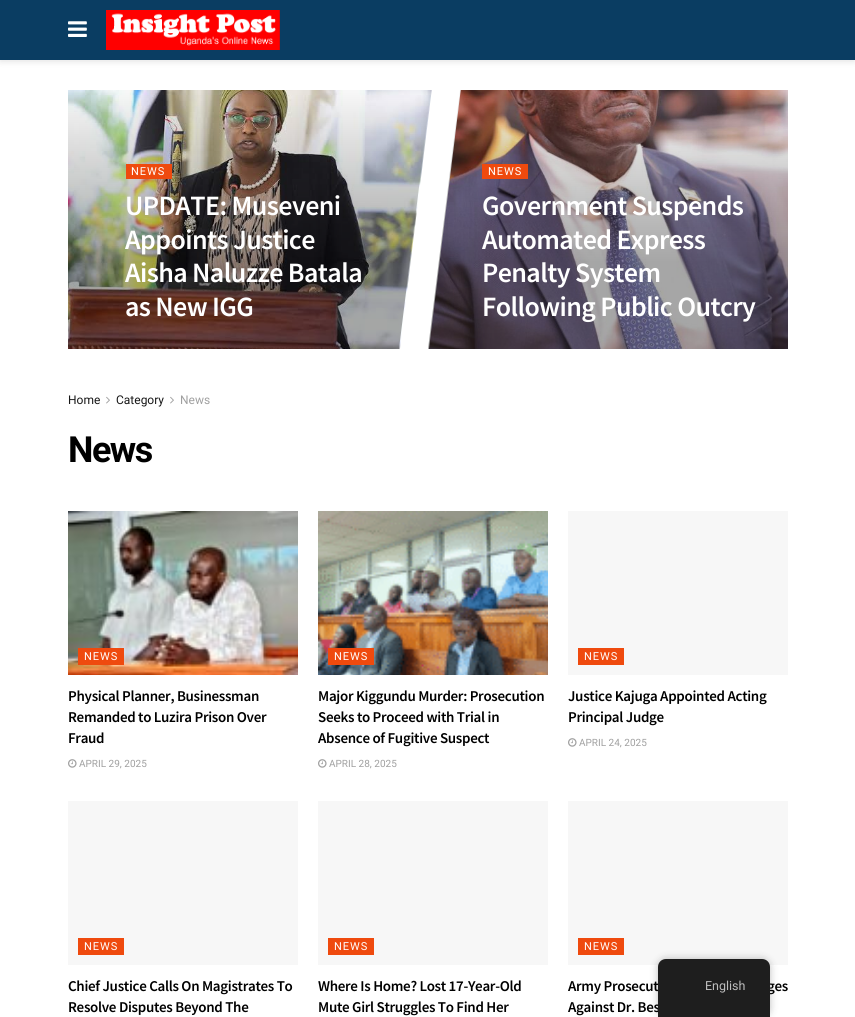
#include <cairo.h>
#include <math.h>
#include <stddef.h>

typedef struct { double x, y; const char *s; } line_t;

static void ink(cairo_t *ctx, unsigned color) {
    cairo_set_source_rgb(ctx, (color >> 16) / 255.0, (color >> 8 & 255) / 255.0, (color & 255) / 255.0);
}

static void write_spaced(cairo_t *ctx, double x, double y, const char *s, double letter, double word) {
    cairo_move_to(ctx, x, y);
    while (*s) {
        char ch[5] = {0};
        int n = 0;
        do ch[n++] = *s++; while ((*s & 0xC0) == 0x80);
        cairo_show_text(ctx, ch);
        cairo_rel_move_to(ctx, letter + word * (*ch == ' '), 0);
    }
}

static void round_path(cairo_t *ctx, double x, double y, double w, double h, double r) {
    cairo_new_sub_path(ctx);
    cairo_arc(ctx, x + w - r, y + h - r, r, 0, M_PI / 2);
    cairo_arc(ctx, x + r, y + h - r, r, M_PI / 2, M_PI);
    cairo_arc(ctx, x + r, y + r, r, M_PI, 1.5 * M_PI);
    cairo_arc(ctx, x + w - r, y + r, r, 1.5 * M_PI, 2 * M_PI);
    cairo_close_path(ctx);
}

static void blur_box(cairo_t *ctx, double x, double y, double w, double h, double r, double blur, double alpha) {
    cairo_push_group_with_content(ctx, CAIRO_CONTENT_ALPHA);
    cairo_set_operator(ctx, CAIRO_OPERATOR_SOURCE);
    for (int i = 15; i >= -15 && fmin(w, h) + blur * i / 3 > 0; i -= 2) {
        double e = blur * i / 6;
        cairo_set_source_rgba(ctx, 0, 0, 0, alpha * erfc((i - 1) / 8.5) / 2);
        round_path(ctx, x - e, y - e, w + 2 * e, h + 2 * e, fmax(0, fmin(r + e + blur * .6, fmin(w, h) / 2 + e)));
        cairo_fill(ctx);
    }
    cairo_pattern_t *soft = cairo_pop_group(ctx);
    cairo_mask(ctx, soft);
    cairo_pattern_destroy(soft);
}

static void paste(cairo_t *ctx, const char *path, double x, double y, double w, double h) {
    cairo_surface_t *image = cairo_image_surface_create_from_png(path);
    cairo_save(ctx);
    cairo_set_source_surface(ctx, image, x, y);
    cairo_rectangle(ctx, x, y, w, h);
    cairo_fill(ctx);
    cairo_restore(ctx);
    cairo_surface_destroy(image);
}

int main(void) {
    cairo_surface_t *surface = cairo_image_surface_create(CAIRO_FORMAT_RGB24, 855, 1017);
    cairo_t *ctx = cairo_create(surface);
    cairo_font_options_t *options = cairo_font_options_create();
    cairo_font_options_set_hint_metrics(options, CAIRO_HINT_METRICS_OFF);
    cairo_font_options_set_hint_style(options, CAIRO_HINT_STYLE_NONE);
    cairo_set_font_options(ctx, options);
    cairo_set_miter_limit(ctx, 4);
    cairo_pattern_t *gradient;
    ink(ctx, 0xFFFFFF);
    cairo_paint(ctx);
    ink(ctx, 0x000000);
    blur_box(ctx, 0, 2, 855, 60, 0, 3, 0.1);
    ink(ctx, 0x0A3D62);
    cairo_rectangle(ctx, 0, 0, 855, 60);
    cairo_fill(ctx);
    paste(ctx, "media/1.png", 68, 21, 19, 16);
    paste(ctx, "media/2.png", 106, 10, 174, 40);
    paste(ctx, "media/3.png", 68, 90, 364, 259);
    cairo_save(ctx);
    cairo_rectangle(ctx, 68, 90, 379, 259);
    cairo_clip(ctx);
    gradient = cairo_pattern_create_linear(210, 77, 210, 362);
    cairo_pattern_add_color_stop_rgba(gradient, 0, 0, 0, 0, 0);
    cairo_pattern_add_color_stop_rgba(gradient, 0.65, 0, 0, 0, 0.35);
    cairo_pattern_add_color_stop_rgba(gradient, 1, 0, 0, 0, 0.35);
    cairo_set_source(ctx, gradient);
    cairo_pattern_destroy(gradient);
    cairo_new_path(ctx);
    cairo_move_to(ctx, 50, 90);
    cairo_line_to(ctx, 18, 349);
    cairo_line_to(ctx, 399, 349);
    cairo_line_to(ctx, 431, 90);
    cairo_close_path(ctx);
    cairo_fill(ctx);
    cairo_restore(ctx);
    ink(ctx, 0xEF4A0E);
    cairo_rectangle(ctx, 126, 164, 46, 15);
    cairo_fill(ctx);
    cairo_select_font_face(ctx, "Roboto", CAIRO_FONT_SLANT_NORMAL, CAIRO_FONT_WEIGHT_NORMAL);
    cairo_set_font_size(ctx, 11);
    ink(ctx, 0xFFFFFF);
    write_spaced(ctx, 131, 175, "NEWS", 1, 0);
    cairo_select_font_face(ctx, "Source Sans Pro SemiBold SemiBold", CAIRO_FONT_SLANT_NORMAL, CAIRO_FONT_WEIGHT_NORMAL);
    cairo_set_font_size(ctx, 28);
    {
        static const line_t items[] = {
            {125, 215, "UPDATE: Museveni"},
            {125, 249, "Appoints Justice"},
            {125, 282, "Aisha Naluzze Batala"},
            {125, 316, "as New IGG"},
        };
        for (size_t i = 0; i < sizeof items / sizeof *items; i++) {
            write_spaced(ctx, items[i].x, items[i].y, items[i].s, -0.6, 0);
        }
    }
    cairo_save(ctx);
    cairo_rectangle(ctx, 68, 90, 720, 259);
    cairo_clip(ctx);
    ink(ctx, 0xF7F7F7);
    cairo_new_path(ctx);
    cairo_move_to(ctx, 460, 90);
    cairo_line_to(ctx, 428, 349);
    cairo_line_to(ctx, 809, 349);
    cairo_line_to(ctx, 841, 90);
    cairo_close_path(ctx);
    cairo_fill(ctx);
    cairo_restore(ctx);
    paste(ctx, "media/4.png", 429, 90, 359, 259);
    cairo_save(ctx);
    cairo_rectangle(ctx, 383, 90, 405, 259);
    cairo_clip(ctx);
    gradient = cairo_pattern_create_linear(620, 77, 620, 362);
    cairo_pattern_add_color_stop_rgba(gradient, 0, 0, 0, 0, 0);
    cairo_pattern_add_color_stop_rgba(gradient, 0.65, 0, 0, 0, 0.35);
    cairo_pattern_add_color_stop_rgba(gradient, 1, 0, 0, 0, 0.35);
    cairo_set_source(ctx, gradient);
    cairo_pattern_destroy(gradient);
    cairo_new_path(ctx);
    cairo_move_to(ctx, 460, 90);
    cairo_line_to(ctx, 428, 349);
    cairo_line_to(ctx, 809, 349);
    cairo_line_to(ctx, 841, 90);
    cairo_close_path(ctx);
    cairo_fill(ctx);
    cairo_restore(ctx);
    ink(ctx, 0xEF4A0E);
    cairo_rectangle(ctx, 482, 164, 46, 15);
    cairo_fill(ctx);
    cairo_select_font_face(ctx, "Roboto", CAIRO_FONT_SLANT_NORMAL, CAIRO_FONT_WEIGHT_NORMAL);
    cairo_set_font_size(ctx, 11);
    ink(ctx, 0xFFFFFF);
    write_spaced(ctx, 488, 175, "NEWS", 1, 0);
    cairo_select_font_face(ctx, "Source Sans Pro SemiBold SemiBold", CAIRO_FONT_SLANT_NORMAL, CAIRO_FONT_WEIGHT_NORMAL);
    cairo_set_font_size(ctx, 28);
    {
        static const line_t items[] = {
            {482, 215, "Government Suspends"},
            {482, 249, "Automated Express"},
            {482, 282, "Penalty System"},
            {482, 316, "Following Public Outcry"},
        };
        for (size_t i = 0; i < sizeof items / sizeof *items; i++) {
            write_spaced(ctx, items[i].x, items[i].y, items[i].s, -0.6, 0);
        }
    }
    cairo_select_font_face(ctx, "Roboto", CAIRO_FONT_SLANT_NORMAL, CAIRO_FONT_WEIGHT_NORMAL);
    cairo_set_font_size(ctx, 12);
    ink(ctx, 0x171717);
    cairo_move_to(ctx, 68, 404);
    cairo_show_text(ctx, "Home");
    paste(ctx, "media/5.png", 106, 396, 4, 8);
    cairo_move_to(ctx, 116, 404);
    cairo_show_text(ctx, "Category");
    paste(ctx, "media/5.png", 170, 396, 4, 8);
    ink(ctx, 0xA0A0A0);
    cairo_move_to(ctx, 180, 404);
    cairo_show_text(ctx, "News");
    cairo_select_font_face(ctx, "Roboto", CAIRO_FONT_SLANT_NORMAL, CAIRO_FONT_WEIGHT_BOLD);
    cairo_set_font_size(ctx, 36);
    ink(ctx, 0x000000);
    write_spaced(ctx, 68, 462, "News", -1.5, 0);
    paste(ctx, "media/6.png", 68, 511, 230, 164);
    ink(ctx, 0xEF4A0E);
    cairo_rectangle(ctx, 78, 648, 46, 17);
    cairo_fill(ctx);
    cairo_select_font_face(ctx, "Roboto", CAIRO_FONT_SLANT_NORMAL, CAIRO_FONT_WEIGHT_NORMAL);
    cairo_set_font_size(ctx, 11);
    ink(ctx, 0xFFFFFF);
    write_spaced(ctx, 84, 660, "NEWS", 1, 0);
    cairo_select_font_face(ctx, "Source Sans Pro SemiBold SemiBold", CAIRO_FONT_SLANT_NORMAL, CAIRO_FONT_WEIGHT_NORMAL);
    cairo_set_font_size(ctx, 15);
    ink(ctx, 0x000000);
    {
        static const line_t items[] = {
            {68, 701, "Physical Planner, Businessman"},
            {68, 722, "Remanded to Luzira Prison Over"},
            {68, 743, "Fraud"},
        };
        for (size_t i = 0; i < sizeof items / sizeof *items; i++) {
            write_spaced(ctx, items[i].x, items[i].y, items[i].s, -0.3, 0);
        }
    }
    paste(ctx, "media/7.png", 68, 759, 9, 9);
    cairo_select_font_face(ctx, "Roboto", CAIRO_FONT_SLANT_NORMAL, CAIRO_FONT_WEIGHT_NORMAL);
    cairo_set_font_size(ctx, 10);
    ink(ctx, 0xA0A0A0);
    cairo_move_to(ctx, 79, 767);
    cairo_show_text(ctx, "APRIL 29, 2025");
    paste(ctx, "media/8.png", 318, 511, 230, 164);
    ink(ctx, 0xEF4A0E);
    cairo_rectangle(ctx, 328, 648, 46, 17);
    cairo_fill(ctx);
    cairo_set_font_size(ctx, 11);
    ink(ctx, 0xFFFFFF);
    write_spaced(ctx, 334, 660, "NEWS", 1, 0);
    cairo_select_font_face(ctx, "Source Sans Pro SemiBold SemiBold", CAIRO_FONT_SLANT_NORMAL, CAIRO_FONT_WEIGHT_NORMAL);
    cairo_set_font_size(ctx, 15);
    ink(ctx, 0x000000);
    {
        static const line_t items[] = {
            {318, 701, "Major Kiggundu Murder: Prosecution"},
            {318, 722, "Seeks to Proceed with Trial in"},
            {318, 743, "Absence of Fugitive Suspect"},
        };
        for (size_t i = 0; i < sizeof items / sizeof *items; i++) {
            write_spaced(ctx, items[i].x, items[i].y, items[i].s, -0.3, 0);
        }
    }
    paste(ctx, "media/7.png", 318, 759, 9, 9);
    cairo_select_font_face(ctx, "Roboto", CAIRO_FONT_SLANT_NORMAL, CAIRO_FONT_WEIGHT_NORMAL);
    cairo_set_font_size(ctx, 10);
    ink(ctx, 0xA0A0A0);
    cairo_move_to(ctx, 329, 767);
    cairo_show_text(ctx, "APRIL 28, 2025");
    ink(ctx, 0xF7F7F7);
    cairo_rectangle(ctx, 568, 511, 220, 164);
    cairo_fill(ctx);
    ink(ctx, 0xEF4A0E);
    cairo_rectangle(ctx, 578, 648, 46, 17);
    cairo_fill(ctx);
    cairo_set_font_size(ctx, 11);
    ink(ctx, 0xFFFFFF);
    write_spaced(ctx, 584, 660, "NEWS", 1, 0);
    cairo_select_font_face(ctx, "Source Sans Pro SemiBold SemiBold", CAIRO_FONT_SLANT_NORMAL, CAIRO_FONT_WEIGHT_NORMAL);
    cairo_set_font_size(ctx, 15);
    ink(ctx, 0x000000);
    write_spaced(ctx, 568, 701, "Justice Kajuga Appointed Acting", -0.3, 0);
    write_spaced(ctx, 568, 722, "Principal Judge", -0.3, 0);
    paste(ctx, "media/7.png", 568, 738, 9, 9);
    cairo_select_font_face(ctx, "Roboto", CAIRO_FONT_SLANT_NORMAL, CAIRO_FONT_WEIGHT_NORMAL);
    cairo_set_font_size(ctx, 10);
    ink(ctx, 0xA0A0A0);
    cairo_move_to(ctx, 579, 746);
    cairo_show_text(ctx, "APRIL 24, 2025");
    ink(ctx, 0xF7F7F7);
    cairo_rectangle(ctx, 68, 801, 230, 164);
    cairo_fill(ctx);
    ink(ctx, 0xEF4A0E);
    cairo_rectangle(ctx, 78, 938, 46, 17);
    cairo_fill(ctx);
    cairo_set_font_size(ctx, 11);
    ink(ctx, 0xFFFFFF);
    write_spaced(ctx, 84, 950, "NEWS", 1, 0);
    cairo_select_font_face(ctx, "Source Sans Pro SemiBold SemiBold", CAIRO_FONT_SLANT_NORMAL, CAIRO_FONT_WEIGHT_NORMAL);
    cairo_set_font_size(ctx, 15);
    ink(ctx, 0x000000);
    write_spaced(ctx, 68, 991, "Chief Justice Calls On Magistrates To", -0.3, 0);
    write_spaced(ctx, 68, 1012, "Resolve Disputes Beyond The", -0.3, 0);
    ink(ctx, 0xF7F7F7);
    cairo_rectangle(ctx, 318, 801, 230, 164);
    cairo_fill(ctx);
    ink(ctx, 0xEF4A0E);
    cairo_rectangle(ctx, 328, 938, 46, 17);
    cairo_fill(ctx);
    cairo_select_font_face(ctx, "Roboto", CAIRO_FONT_SLANT_NORMAL, CAIRO_FONT_WEIGHT_NORMAL);
    cairo_set_font_size(ctx, 11);
    ink(ctx, 0xFFFFFF);
    write_spaced(ctx, 334, 950, "NEWS", 1, 0);
    cairo_select_font_face(ctx, "Source Sans Pro SemiBold SemiBold", CAIRO_FONT_SLANT_NORMAL, CAIRO_FONT_WEIGHT_NORMAL);
    cairo_set_font_size(ctx, 15);
    ink(ctx, 0x000000);
    write_spaced(ctx, 318, 991, "Where Is Home? Lost 17-Year-Old", -0.3, 0);
    write_spaced(ctx, 318, 1012, "Mute Girl Struggles To Find Her", -0.3, 0);
    ink(ctx, 0xF7F7F7);
    cairo_rectangle(ctx, 568, 801, 220, 164);
    cairo_fill(ctx);
    ink(ctx, 0xEF4A0E);
    cairo_rectangle(ctx, 578, 938, 46, 17);
    cairo_fill(ctx);
    cairo_select_font_face(ctx, "Roboto", CAIRO_FONT_SLANT_NORMAL, CAIRO_FONT_WEIGHT_NORMAL);
    cairo_set_font_size(ctx, 11);
    ink(ctx, 0xFFFFFF);
    write_spaced(ctx, 584, 950, "NEWS", 1, 0);
    cairo_select_font_face(ctx, "Source Sans Pro SemiBold SemiBold", CAIRO_FONT_SLANT_NORMAL, CAIRO_FONT_WEIGHT_NORMAL);
    cairo_set_font_size(ctx, 15);
    ink(ctx, 0x000000);
    {
        static const line_t items[] = {
            {568, 991, "Army Prosecut"},
            {767, 991, "ges"},
            {568, 1012, "Against Dr. Bes"},
        };
        for (size_t i = 0; i < sizeof items / sizeof *items; i++) {
            write_spaced(ctx, items[i].x, items[i].y, items[i].s, -0.3, 0);
        }
    }
    ink(ctx, 0x000000);
    blur_box(ctx, 658, 959, 112, 58, 8, 4, 0.25);
    ink(ctx, 0x1E1E1E);
    cairo_new_path(ctx);
    cairo_move_to(ctx, 666, 959);
    cairo_line_to(ctx, 762, 959);
    cairo_curve_to(ctx, 766.5, 959, 770, 962.5, 770, 967);
    cairo_line_to(ctx, 770, 1017);
    cairo_line_to(ctx, 658, 1017);
    cairo_line_to(ctx, 658, 967);
    cairo_curve_to(ctx, 658, 962.5, 661.5, 959, 666, 959);
    cairo_close_path(ctx);
    cairo_fill(ctx);
    cairo_select_font_face(ctx, "Roboto", CAIRO_FONT_SLANT_NORMAL, CAIRO_FONT_WEIGHT_NORMAL);
    cairo_set_font_size(ctx, 12.5);
    ink(ctx, 0xBDBDBD);
    cairo_move_to(ctx, 705, 990);
    cairo_show_text(ctx, "English");
    cairo_surface_write_to_png(surface, "image.png");
    cairo_font_options_destroy(options);
    cairo_destroy(ctx);
    cairo_surface_destroy(surface);
    return 0;
}
